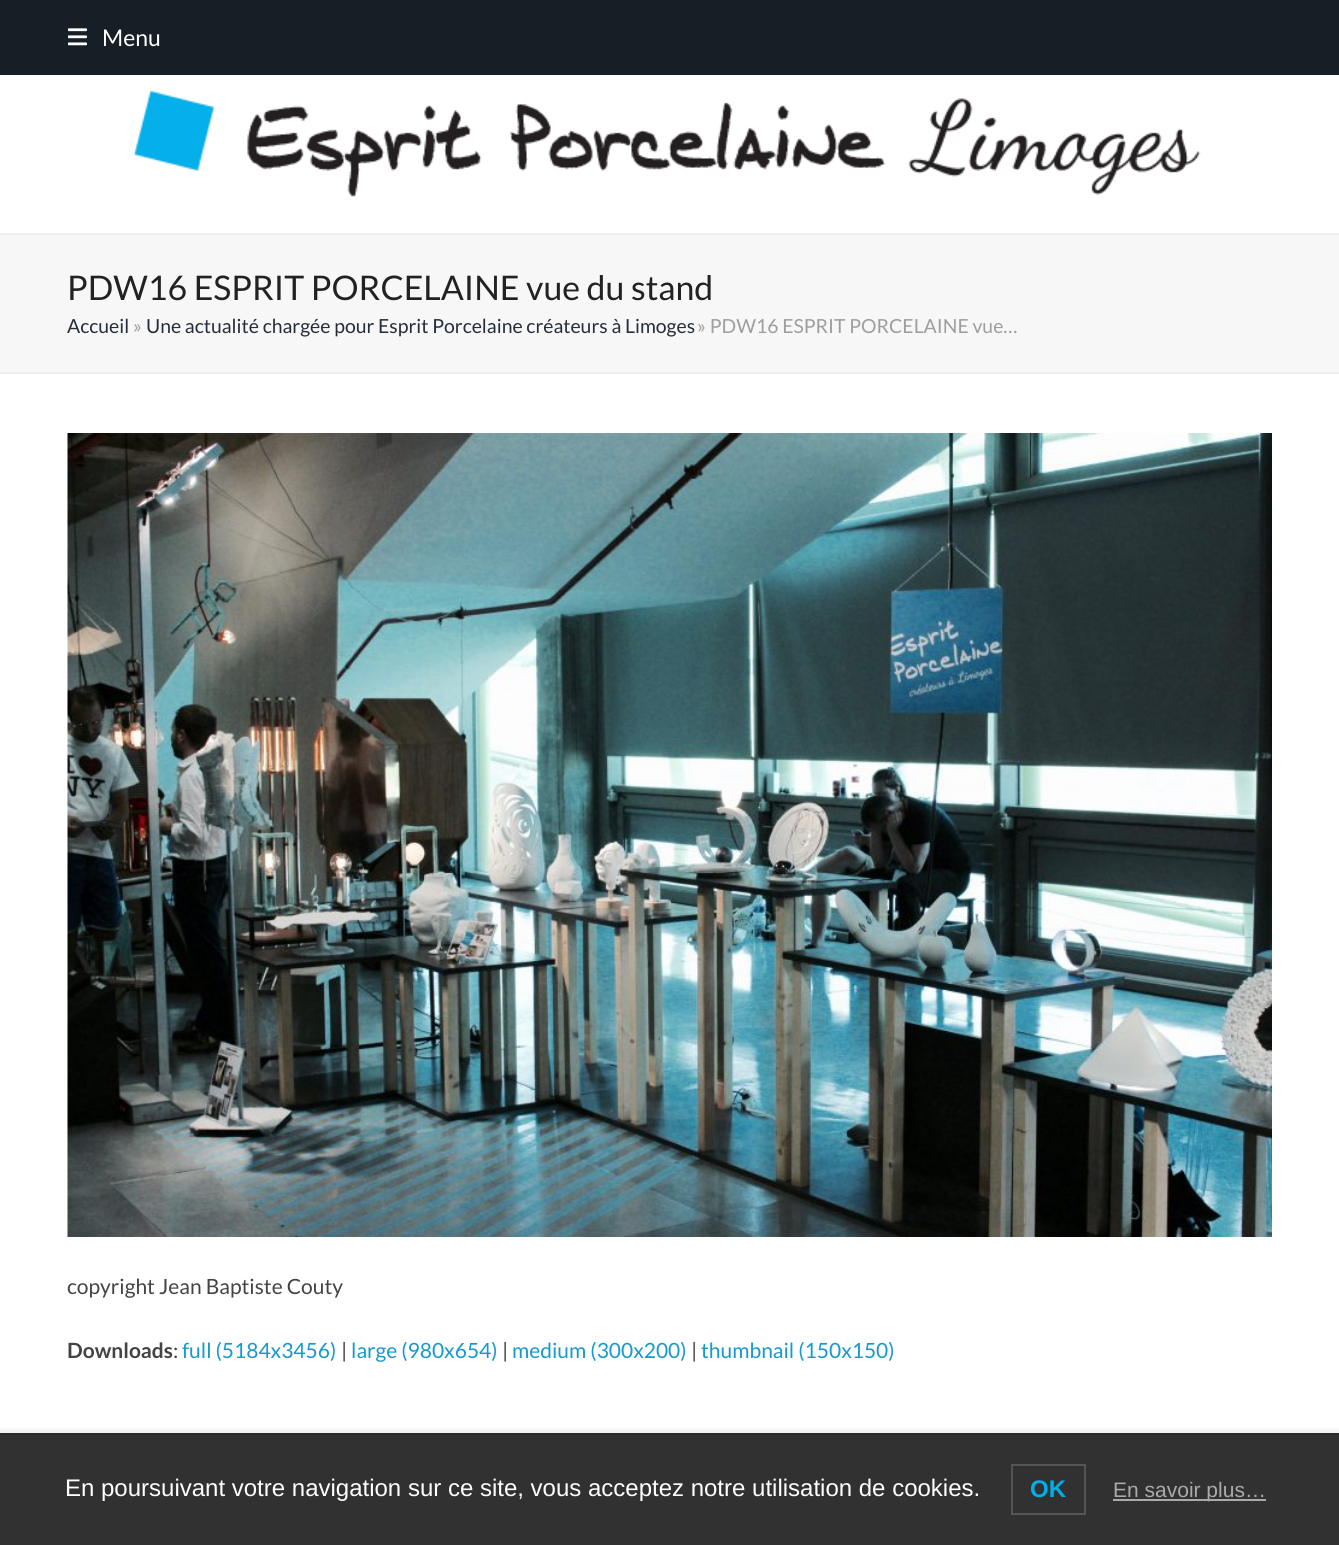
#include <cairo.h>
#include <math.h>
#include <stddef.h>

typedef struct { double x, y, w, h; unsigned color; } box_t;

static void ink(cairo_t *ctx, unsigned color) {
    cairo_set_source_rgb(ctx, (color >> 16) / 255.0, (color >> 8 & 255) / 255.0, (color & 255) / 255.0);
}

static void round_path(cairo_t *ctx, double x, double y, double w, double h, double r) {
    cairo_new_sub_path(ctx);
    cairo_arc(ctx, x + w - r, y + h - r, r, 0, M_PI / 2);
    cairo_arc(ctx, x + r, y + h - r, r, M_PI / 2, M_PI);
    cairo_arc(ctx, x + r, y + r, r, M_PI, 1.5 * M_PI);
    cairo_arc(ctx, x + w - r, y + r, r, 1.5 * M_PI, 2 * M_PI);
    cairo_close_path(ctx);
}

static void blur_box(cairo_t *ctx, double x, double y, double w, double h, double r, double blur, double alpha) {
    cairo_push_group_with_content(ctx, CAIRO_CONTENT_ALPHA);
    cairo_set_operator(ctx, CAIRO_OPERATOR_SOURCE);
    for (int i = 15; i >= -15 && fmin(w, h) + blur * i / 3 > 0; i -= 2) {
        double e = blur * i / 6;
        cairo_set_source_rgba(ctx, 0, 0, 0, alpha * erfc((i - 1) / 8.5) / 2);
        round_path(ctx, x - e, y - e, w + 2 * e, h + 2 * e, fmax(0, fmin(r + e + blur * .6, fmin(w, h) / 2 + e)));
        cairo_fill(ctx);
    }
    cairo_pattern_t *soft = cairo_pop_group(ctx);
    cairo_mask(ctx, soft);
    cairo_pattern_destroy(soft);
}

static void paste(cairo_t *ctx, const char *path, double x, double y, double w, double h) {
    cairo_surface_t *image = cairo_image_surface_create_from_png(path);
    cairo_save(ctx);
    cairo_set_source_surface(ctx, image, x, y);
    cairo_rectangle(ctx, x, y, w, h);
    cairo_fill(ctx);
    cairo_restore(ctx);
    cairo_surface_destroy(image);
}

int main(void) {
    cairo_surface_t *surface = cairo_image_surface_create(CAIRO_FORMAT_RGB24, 1339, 1545);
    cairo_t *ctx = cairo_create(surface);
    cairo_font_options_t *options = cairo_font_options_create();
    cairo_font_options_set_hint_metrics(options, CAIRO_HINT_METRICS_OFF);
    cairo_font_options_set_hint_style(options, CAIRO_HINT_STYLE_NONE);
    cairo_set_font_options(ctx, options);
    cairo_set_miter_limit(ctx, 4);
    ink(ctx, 0xFFFFFF);
    cairo_paint(ctx);
    ink(ctx, 0x313131);
    cairo_rectangle(ctx, 0, 1435, 1339, 110);
    cairo_fill(ctx);
    ink(ctx, 0x151F25);
    cairo_rectangle(ctx, 0, 0, 1339, 75);
    cairo_fill(ctx);
    paste(ctx, "media/1.png", 68, 28, 19, 18);
    cairo_select_font_face(ctx, "Lato", CAIRO_FONT_SLANT_NORMAL, CAIRO_FONT_WEIGHT_NORMAL);
    cairo_set_font_size(ctx, 23);
    ink(ctx, 0xFFFFFF);
    cairo_move_to(ctx, 102, 46);
    cairo_show_text(ctx, "Menu");
    paste(ctx, "media/2.png", 133, 90, 1068, 107);
    {
        static const box_t items[] = {
            {0, 235, 1339, 137, 0xF7F7F7},
            {0, 233, 1339, 2, 0xEEEEEE},
            {0, 372, 1339, 2, 0xEEEEEE},
        };
        for (size_t i = 0; i < sizeof items / sizeof *items; i++) {
            ink(ctx, items[i].color);
            cairo_rectangle(ctx, items[i].x, items[i].y, items[i].w, items[i].h);
            cairo_fill(ctx);
        }
    }
    cairo_set_font_size(ctx, 33.9);
    ink(ctx, 0x222222);
    cairo_move_to(ctx, 67, 300);
    cairo_show_text(ctx, "PDW16 ESPRIT PORCELAINE vue du stand");
    cairo_set_font_size(ctx, 19.4);
    ink(ctx, 0x252D3B);
    cairo_move_to(ctx, 67, 333);
    cairo_show_text(ctx, "Accueil");
    ink(ctx, 0x9E9E9E);
    cairo_move_to(ctx, 133, 333);
    cairo_show_text(ctx, "»");
    ink(ctx, 0x252D3B);
    cairo_move_to(ctx, 146, 333);
    cairo_show_text(ctx, "Une actualité chargée pour Esprit Porcelaine créateurs à Limoges");
    ink(ctx, 0x9E9E9E);
    cairo_move_to(ctx, 697, 333);
    cairo_show_text(ctx, "» PDW16 ESPRIT PORCELAINE vue…");
    paste(ctx, "media/3.png", 67, 433, 1205, 804);
    cairo_set_font_size(ctx, 21);
    ink(ctx, 0x444444);
    cairo_move_to(ctx, 67, 1294);
    cairo_show_text(ctx, "copyright Jean Baptiste Couty");
    cairo_select_font_face(ctx, "Lato", CAIRO_FONT_SLANT_NORMAL, CAIRO_FONT_WEIGHT_BOLD);
    cairo_move_to(ctx, 67, 1358);
    cairo_show_text(ctx, "Downloads");
    cairo_select_font_face(ctx, "Lato", CAIRO_FONT_SLANT_NORMAL, CAIRO_FONT_WEIGHT_NORMAL);
    cairo_move_to(ctx, 173, 1358);
    cairo_show_text(ctx, ":");
    ink(ctx, 0x1799CD);
    cairo_move_to(ctx, 182, 1358);
    cairo_show_text(ctx, "full (5184x3456)");
    ink(ctx, 0x444444);
    cairo_move_to(ctx, 341, 1358);
    cairo_show_text(ctx, "|");
    ink(ctx, 0x1799CD);
    cairo_move_to(ctx, 351, 1358);
    cairo_show_text(ctx, "large (980x654)");
    ink(ctx, 0x444444);
    cairo_move_to(ctx, 502, 1358);
    cairo_show_text(ctx, "|");
    ink(ctx, 0x1799CD);
    cairo_move_to(ctx, 512, 1358);
    cairo_show_text(ctx, "medium (300x200)");
    ink(ctx, 0x444444);
    cairo_move_to(ctx, 691, 1358);
    cairo_show_text(ctx, "|");
    ink(ctx, 0x1799CD);
    cairo_move_to(ctx, 701, 1358);
    cairo_show_text(ctx, "thumbnail (150x150)");
    cairo_save(ctx);
    cairo_rectangle(ctx, 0, 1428, 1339, 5);
    cairo_clip(ctx);
    ink(ctx, 0x000000);
    blur_box(ctx, 0, 1433, 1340, 112, 0, 6, 0.1);
    cairo_restore(ctx);
    ink(ctx, 0x2B2B2B);
    cairo_rectangle(ctx, 0, 1433, 1339, 2);
    cairo_fill(ctx);
    cairo_select_font_face(ctx, "Liberation Sans", CAIRO_FONT_SLANT_NORMAL, CAIRO_FONT_WEIGHT_NORMAL);
    cairo_set_font_size(ctx, 24);
    ink(ctx, 0xFFFFFF);
    cairo_move_to(ctx, 65, 1496);
    cairo_show_text(ctx, "En poursuivant votre navigation sur ce site, vous acceptez notre utilisation de cookies.");
    cairo_rectangle(ctx, 1012, 1465, 73, 49);
    ink(ctx, 0x555555);
    cairo_stroke(ctx);
    cairo_select_font_face(ctx, "Liberation Sans", CAIRO_FONT_SLANT_NORMAL, CAIRO_FONT_WEIGHT_BOLD);
    ink(ctx, 0x00AFE9);
    cairo_move_to(ctx, 1030, 1497);
    cairo_show_text(ctx, "OK");
    ink(ctx, 0xAAAAAA);
    cairo_rectangle(ctx, 1113, 1499, 153, 2);
    cairo_fill(ctx);
    cairo_select_font_face(ctx, "Liberation Sans", CAIRO_FONT_SLANT_NORMAL, CAIRO_FONT_WEIGHT_NORMAL);
    cairo_set_font_size(ctx, 21);
    cairo_move_to(ctx, 1113, 1497);
    cairo_show_text(ctx, "En savoir plus…");
    cairo_surface_write_to_png(surface, "image.png");
    cairo_font_options_destroy(options);
    cairo_destroy(ctx);
    cairo_surface_destroy(surface);
    return 0;
}
